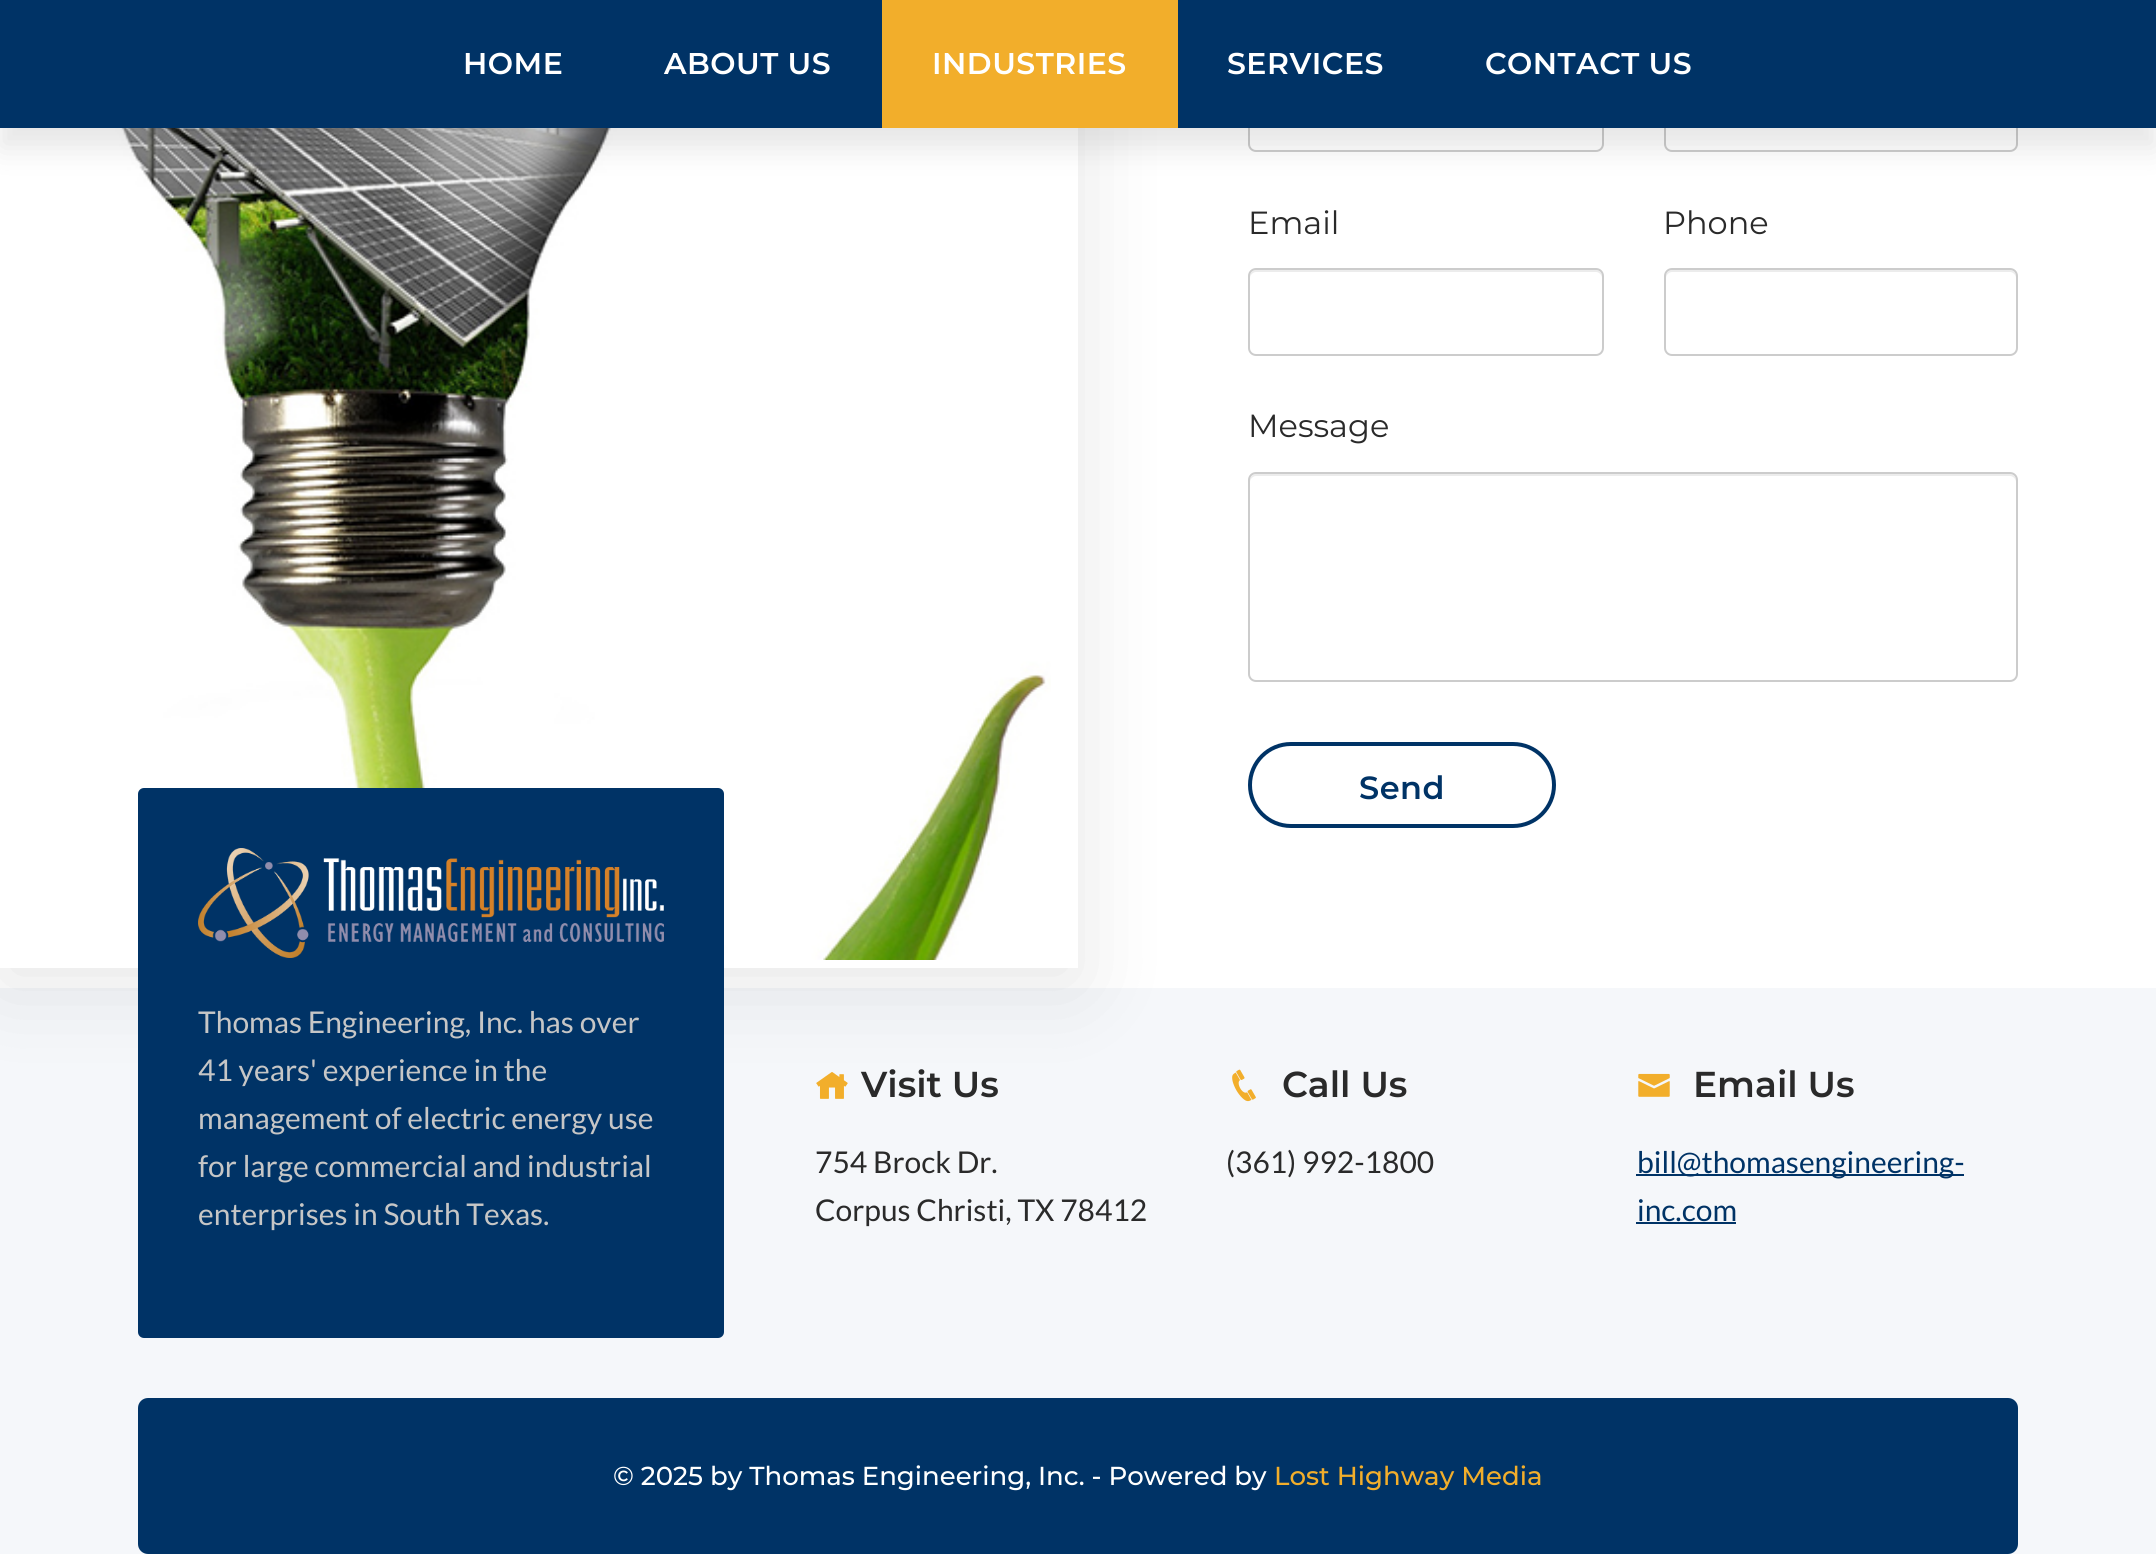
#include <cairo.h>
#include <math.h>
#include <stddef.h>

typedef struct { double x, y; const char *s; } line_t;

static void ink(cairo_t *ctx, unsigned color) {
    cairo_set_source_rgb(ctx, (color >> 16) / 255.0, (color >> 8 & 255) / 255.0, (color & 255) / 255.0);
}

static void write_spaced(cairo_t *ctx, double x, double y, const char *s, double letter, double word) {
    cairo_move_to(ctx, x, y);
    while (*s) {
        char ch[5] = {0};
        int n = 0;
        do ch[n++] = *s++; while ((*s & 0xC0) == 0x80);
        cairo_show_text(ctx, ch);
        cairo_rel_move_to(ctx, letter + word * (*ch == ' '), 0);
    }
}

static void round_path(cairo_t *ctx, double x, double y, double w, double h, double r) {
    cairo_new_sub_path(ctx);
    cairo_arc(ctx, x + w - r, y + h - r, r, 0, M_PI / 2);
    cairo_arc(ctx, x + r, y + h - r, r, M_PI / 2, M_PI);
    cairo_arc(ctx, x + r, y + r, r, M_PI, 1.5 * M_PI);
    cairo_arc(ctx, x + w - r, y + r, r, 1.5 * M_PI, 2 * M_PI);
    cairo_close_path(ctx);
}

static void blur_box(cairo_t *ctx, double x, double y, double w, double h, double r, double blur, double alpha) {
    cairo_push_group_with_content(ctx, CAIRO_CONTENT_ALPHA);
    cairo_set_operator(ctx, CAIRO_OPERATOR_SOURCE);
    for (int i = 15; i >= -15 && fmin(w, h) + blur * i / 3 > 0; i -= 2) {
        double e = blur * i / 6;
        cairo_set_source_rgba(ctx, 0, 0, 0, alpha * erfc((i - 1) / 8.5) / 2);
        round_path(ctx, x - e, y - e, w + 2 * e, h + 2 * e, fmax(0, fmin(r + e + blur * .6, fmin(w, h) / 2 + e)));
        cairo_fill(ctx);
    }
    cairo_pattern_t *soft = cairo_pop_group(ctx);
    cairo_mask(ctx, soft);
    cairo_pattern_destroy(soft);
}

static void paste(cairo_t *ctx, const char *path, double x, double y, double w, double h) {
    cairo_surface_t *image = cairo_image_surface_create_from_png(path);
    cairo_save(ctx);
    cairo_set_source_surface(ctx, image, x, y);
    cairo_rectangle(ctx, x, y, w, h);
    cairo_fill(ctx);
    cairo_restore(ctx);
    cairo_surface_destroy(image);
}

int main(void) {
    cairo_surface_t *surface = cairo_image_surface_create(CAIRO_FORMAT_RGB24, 2156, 1554);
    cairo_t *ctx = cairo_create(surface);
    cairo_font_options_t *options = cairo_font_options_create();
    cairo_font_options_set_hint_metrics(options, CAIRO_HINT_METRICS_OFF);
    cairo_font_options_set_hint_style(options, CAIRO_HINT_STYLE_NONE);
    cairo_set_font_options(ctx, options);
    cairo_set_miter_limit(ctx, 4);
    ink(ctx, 0xFFFFFF);
    cairo_paint(ctx);
    ink(ctx, 0xF5F7FA);
    cairo_rectangle(ctx, 0, 988, 2156, 566);
    cairo_fill(ctx);
    cairo_save(ctx);
    cairo_set_fill_rule(ctx, CAIRO_FILL_RULE_EVEN_ODD);
    cairo_new_path(ctx);
    cairo_move_to(ctx, 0, 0);
    cairo_line_to(ctx, 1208, 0);
    cairo_line_to(ctx, 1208, 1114);
    cairo_line_to(ctx, 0, 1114);
    cairo_close_path(ctx);
    cairo_move_to(ctx, 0, -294);
    cairo_line_to(ctx, 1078, -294);
    cairo_line_to(ctx, 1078, 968);
    cairo_line_to(ctx, 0, 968);
    cairo_close_path(ctx);
    cairo_clip(ctx);
    ink(ctx, 0x000000);
    blur_box(ctx, 0, -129, 1078, 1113, 0, 43, 0.1);
    cairo_restore(ctx);
    paste(ctx, "media/1.png", 105, 128, 946, 832);
    round_path(ctx, 1249, 65, 354, 86, 7);
    ink(ctx, 0xCCCCCC);
    cairo_stroke(ctx);
    round_path(ctx, 1665, 65, 352, 86, 7);
    cairo_stroke(ctx);
    ink(ctx, 0x000000);
    blur_box(ctx, 0, 20, 2156, 128, 0, 15, 0.1);
    ink(ctx, 0x003366);
    cairo_rectangle(ctx, 0, 0, 2156, 128);
    cairo_fill(ctx);
    cairo_select_font_face(ctx, "Montserrat SemiBold", CAIRO_FONT_SLANT_NORMAL, CAIRO_FONT_WEIGHT_NORMAL);
    cairo_set_font_size(ctx, 30);
    ink(ctx, 0xFFFFFF);
    write_spaced(ctx, 463, 74, "HOME", 0.5, 0);
    write_spaced(ctx, 664, 74, "ABOUT US", 0.5, 0);
    ink(ctx, 0xF2AE2B);
    cairo_rectangle(ctx, 882, 0, 296, 128);
    cairo_fill(ctx);
    ink(ctx, 0xFFFFFF);
    {
        static const line_t items[] = {
            {932, 74, "INDUSTRIES"},
            {1227, 74, "SERVICES"},
            {1485, 74, "CONTACT US"},
        };
        for (size_t i = 0; i < sizeof items / sizeof *items; i++) {
            write_spaced(ctx, items[i].x, items[i].y, items[i].s, 0.5, 0);
        }
    }
    cairo_select_font_face(ctx, "Montserrat", CAIRO_FONT_SLANT_NORMAL, CAIRO_FONT_WEIGHT_NORMAL);
    cairo_set_font_size(ctx, 32);
    ink(ctx, 0x2A2A2A);
    cairo_move_to(ctx, 1248, 234);
    cairo_show_text(ctx, "Email");
    ink(ctx, 0xECECEC);
    cairo_new_path(ctx);
    cairo_move_to(ctx, 1256, 272);
    cairo_line_to(ctx, 1596, 272);
    cairo_curve_to(ctx, 1599, 272, 1602, 275, 1602, 278);
    cairo_line_to(ctx, 1602, 276);
    cairo_curve_to(ctx, 1602, 273, 1599, 270, 1596, 270);
    cairo_line_to(ctx, 1256, 270);
    cairo_curve_to(ctx, 1253, 270, 1250, 273, 1250, 276);
    cairo_line_to(ctx, 1250, 278);
    cairo_curve_to(ctx, 1250, 275, 1253, 272, 1256, 272);
    cairo_close_path(ctx);
    cairo_fill(ctx);
    round_path(ctx, 1249, 269, 354, 86, 7);
    ink(ctx, 0xCCCCCC);
    cairo_stroke(ctx);
    ink(ctx, 0x2A2A2A);
    cairo_move_to(ctx, 1663, 234);
    cairo_show_text(ctx, "Phone");
    ink(ctx, 0xECECEC);
    cairo_new_path(ctx);
    cairo_move_to(ctx, 1672, 272);
    cairo_line_to(ctx, 2010, 272);
    cairo_curve_to(ctx, 2013, 272, 2016, 275, 2016, 278);
    cairo_line_to(ctx, 2016, 276);
    cairo_curve_to(ctx, 2016, 273, 2013, 270, 2010, 270);
    cairo_line_to(ctx, 1672, 270);
    cairo_curve_to(ctx, 1669, 270, 1666, 273, 1666, 276);
    cairo_line_to(ctx, 1666, 278);
    cairo_curve_to(ctx, 1666, 275, 1669, 272, 1672, 272);
    cairo_close_path(ctx);
    cairo_fill(ctx);
    round_path(ctx, 1665, 269, 352, 86, 7);
    ink(ctx, 0xCCCCCC);
    cairo_stroke(ctx);
    ink(ctx, 0x2A2A2A);
    cairo_move_to(ctx, 1248, 437);
    cairo_show_text(ctx, "Message");
    ink(ctx, 0xECECEC);
    cairo_new_path(ctx);
    cairo_move_to(ctx, 1256, 476);
    cairo_line_to(ctx, 2010, 476);
    cairo_curve_to(ctx, 2013, 476, 2016, 479, 2016, 482);
    cairo_line_to(ctx, 2016, 480);
    cairo_curve_to(ctx, 2016, 477, 2013, 474, 2010, 474);
    cairo_line_to(ctx, 1256, 474);
    cairo_curve_to(ctx, 1253, 474, 1250, 477, 1250, 480);
    cairo_line_to(ctx, 1250, 482);
    cairo_curve_to(ctx, 1250, 479, 1253, 476, 1256, 476);
    cairo_close_path(ctx);
    cairo_fill(ctx);
    round_path(ctx, 1249, 473, 768, 208, 7);
    ink(ctx, 0xCCCCCC);
    cairo_stroke(ctx);
    round_path(ctx, 1250, 744, 304, 82, 41);
    ink(ctx, 0x003366);
    cairo_set_line_width(ctx, 4);
    cairo_stroke(ctx);
    cairo_select_font_face(ctx, "Montserrat SemiBold", CAIRO_FONT_SLANT_NORMAL, CAIRO_FONT_WEIGHT_NORMAL);
    write_spaced(ctx, 1359, 799, "Send", 0.5, 0);
    round_path(ctx, 138, 788, 586, 550, 6);
    cairo_fill(ctx);
    paste(ctx, "media/2.png", 198, 848, 466, 110);
    cairo_select_font_face(ctx, "Lato", CAIRO_FONT_SLANT_NORMAL, CAIRO_FONT_WEIGHT_NORMAL);
    cairo_set_font_size(ctx, 30);
    ink(ctx, 0xC6C6C6);
    {
        static const line_t items[] = {
            {198, 1033, "Thomas Engineering, Inc. has over"},
            {198, 1081, "41 years' experience in the"},
            {198, 1129, "management of electric energy use"},
            {198, 1177, "for large commercial and industrial"},
            {198, 1225, "enterprises in South Texas."},
        };
        for (size_t i = 0; i < sizeof items / sizeof *items; i++) {
            cairo_move_to(ctx, items[i].x, items[i].y);
            cairo_show_text(ctx, items[i].s);
        }
    }
    paste(ctx, "media/3.png", 816, 1072, 32, 27);
    cairo_select_font_face(ctx, "Montserrat SemiBold", CAIRO_FONT_SLANT_NORMAL, CAIRO_FONT_WEIGHT_NORMAL);
    cairo_set_font_size(ctx, 36);
    ink(ctx, 0x2A2A2A);
    cairo_move_to(ctx, 861, 1097);
    cairo_show_text(ctx, "Visit Us");
    cairo_select_font_face(ctx, "Lato", CAIRO_FONT_SLANT_NORMAL, CAIRO_FONT_WEIGHT_NORMAL);
    cairo_set_font_size(ctx, 30);
    cairo_move_to(ctx, 815, 1173);
    cairo_show_text(ctx, "754 Brock Dr.");
    cairo_move_to(ctx, 815, 1221);
    cairo_show_text(ctx, "Corpus Christi, TX 78412");
    paste(ctx, "media/4.png", 1232, 1069, 24, 33);
    cairo_select_font_face(ctx, "Montserrat SemiBold", CAIRO_FONT_SLANT_NORMAL, CAIRO_FONT_WEIGHT_NORMAL);
    cairo_set_font_size(ctx, 36);
    cairo_move_to(ctx, 1282, 1097);
    cairo_show_text(ctx, "Call Us");
    cairo_select_font_face(ctx, "Lato", CAIRO_FONT_SLANT_NORMAL, CAIRO_FONT_WEIGHT_NORMAL);
    cairo_set_font_size(ctx, 30);
    cairo_move_to(ctx, 1226, 1173);
    cairo_show_text(ctx, "(361) 992-1800");
    paste(ctx, "media/5.png", 1638, 1073, 32, 24);
    cairo_select_font_face(ctx, "Montserrat SemiBold", CAIRO_FONT_SLANT_NORMAL, CAIRO_FONT_WEIGHT_NORMAL);
    cairo_set_font_size(ctx, 36);
    cairo_move_to(ctx, 1693, 1097);
    cairo_show_text(ctx, "Email Us");
    ink(ctx, 0x003366);
    cairo_rectangle(ctx, 1636, 1174, 328, 2);
    cairo_fill(ctx);
    cairo_select_font_face(ctx, "Lato", CAIRO_FONT_SLANT_NORMAL, CAIRO_FONT_WEIGHT_NORMAL);
    cairo_set_font_size(ctx, 30);
    cairo_move_to(ctx, 1637, 1173);
    cairo_show_text(ctx, "bill@thomasengineering-");
    cairo_move_to(ctx, 1637, 1221);
    cairo_show_text(ctx, "inc.com");
    cairo_rectangle(ctx, 1636, 1222, 100, 2);
    cairo_fill(ctx);
    round_path(ctx, 138, 1398, 1880, 156, 10);
    cairo_fill(ctx);
    cairo_select_font_face(ctx, "Montserrat Medium", CAIRO_FONT_SLANT_NORMAL, CAIRO_FONT_WEIGHT_NORMAL);
    cairo_set_font_size(ctx, 26);
    ink(ctx, 0xFFFFFF);
    cairo_move_to(ctx, 613, 1485);
    cairo_show_text(ctx, "© 2025 by Thomas Engineering, Inc. - Powered by");
    ink(ctx, 0xF2AE2B);
    cairo_move_to(ctx, 1274, 1485);
    cairo_show_text(ctx, "Lost Highway Media");
    cairo_surface_write_to_png(surface, "image.png");
    cairo_font_options_destroy(options);
    cairo_destroy(ctx);
    cairo_surface_destroy(surface);
    return 0;
}
